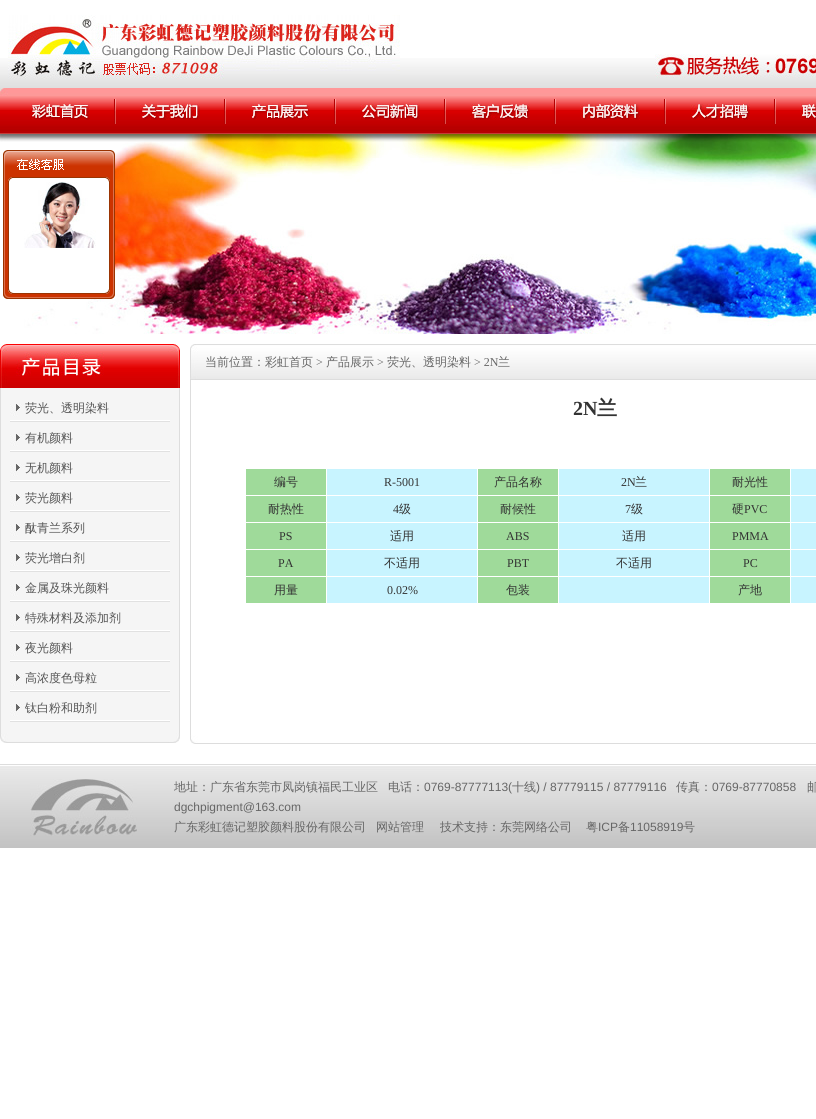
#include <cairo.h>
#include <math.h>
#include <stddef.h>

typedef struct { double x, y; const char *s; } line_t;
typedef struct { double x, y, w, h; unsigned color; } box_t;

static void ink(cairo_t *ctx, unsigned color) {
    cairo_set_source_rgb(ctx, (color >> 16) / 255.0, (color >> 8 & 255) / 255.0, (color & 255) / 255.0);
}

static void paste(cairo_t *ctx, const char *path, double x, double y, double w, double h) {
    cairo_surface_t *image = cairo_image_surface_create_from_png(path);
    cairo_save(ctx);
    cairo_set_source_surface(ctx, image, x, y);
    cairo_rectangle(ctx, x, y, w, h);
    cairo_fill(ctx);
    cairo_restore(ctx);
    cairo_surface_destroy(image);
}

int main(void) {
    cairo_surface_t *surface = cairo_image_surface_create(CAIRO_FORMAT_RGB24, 816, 1119);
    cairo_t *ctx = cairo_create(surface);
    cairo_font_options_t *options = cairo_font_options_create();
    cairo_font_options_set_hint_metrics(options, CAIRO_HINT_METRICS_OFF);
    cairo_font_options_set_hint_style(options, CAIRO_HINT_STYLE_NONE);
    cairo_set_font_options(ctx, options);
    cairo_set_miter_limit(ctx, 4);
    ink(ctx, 0xFFFFFF);
    cairo_paint(ctx);
    paste(ctx, "media/1.png", 0, 58, 816, 30);
    paste(ctx, "media/2.png", 8, 15, 392, 64);
    paste(ctx, "media/3.png", 655, 54, 161, 24);
    paste(ctx, "media/4.png", 0, 88, 10, 46);
    paste(ctx, "media/5.png", 10, 88, 806, 46);
    paste(ctx, "media/6.png", 30, 104, 60, 16);
    paste(ctx, "media/7.png", 114, 99, 2, 25);
    paste(ctx, "media/8.png", 140, 104, 60, 16);
    paste(ctx, "media/7.png", 224, 99, 2, 25);
    paste(ctx, "media/9.png", 250, 104, 60, 16);
    paste(ctx, "media/7.png", 334, 99, 2, 25);
    paste(ctx, "media/10.png", 360, 104, 60, 16);
    paste(ctx, "media/7.png", 444, 99, 2, 25);
    paste(ctx, "media/11.png", 470, 104, 60, 16);
    paste(ctx, "media/7.png", 554, 99, 2, 25);
    paste(ctx, "media/12.png", 580, 104, 60, 16);
    paste(ctx, "media/7.png", 664, 99, 2, 25);
    paste(ctx, "media/13.png", 690, 104, 60, 16);
    paste(ctx, "media/7.png", 774, 99, 2, 25);
    paste(ctx, "media/14.png", 800, 104, 16, 16);
    paste(ctx, "media/15.png", 0, 134, 816, 200);
    paste(ctx, "media/16.png", 3, 150, 112, 32);
    paste(ctx, "media/17.png", 3, 182, 112, 107);
    paste(ctx, "media/18.png", 24, 182, 72, 66);
    paste(ctx, "media/19.png", 3, 289, 112, 10);
    paste(ctx, "media/20.png", 0, 344, 180, 44);
    {
        static const box_t items[] = {
            {1, 388, 178, 345, 0xF5F5F5},
            {179, 388, 1, 345, 0xDDDDDD},
            {0, 388, 1, 345, 0xDDDDDD},
        };
        for (size_t i = 0; i < sizeof items / sizeof *items; i++) {
            ink(ctx, items[i].color);
            cairo_rectangle(ctx, items[i].x, items[i].y, items[i].w, items[i].h);
            cairo_fill(ctx);
        }
    }
    paste(ctx, "media/21.png", 10, 404, 160, 18);
    cairo_select_font_face(ctx, "WenQuanYi Zen Hei Medium", CAIRO_FONT_SLANT_NORMAL, CAIRO_FONT_WEIGHT_NORMAL);
    cairo_set_font_size(ctx, 12);
    ink(ctx, 0x555555);
    cairo_move_to(ctx, 25, 412);
    cairo_show_text(ctx, "荧光、透明染料");
    paste(ctx, "media/21.png", 10, 434, 160, 18);
    cairo_move_to(ctx, 25, 442);
    cairo_show_text(ctx, "有机颜料");
    paste(ctx, "media/21.png", 10, 464, 160, 18);
    cairo_move_to(ctx, 25, 472);
    cairo_show_text(ctx, "无机颜料");
    paste(ctx, "media/21.png", 10, 494, 160, 18);
    cairo_move_to(ctx, 25, 502);
    cairo_show_text(ctx, "荧光颜料");
    paste(ctx, "media/21.png", 10, 524, 160, 18);
    cairo_move_to(ctx, 25, 532);
    cairo_show_text(ctx, "酞青兰系列");
    paste(ctx, "media/21.png", 10, 554, 160, 18);
    cairo_move_to(ctx, 25, 562);
    cairo_show_text(ctx, "荧光增白剂");
    paste(ctx, "media/21.png", 10, 584, 160, 18);
    cairo_move_to(ctx, 25, 592);
    cairo_show_text(ctx, "金属及珠光颜料");
    paste(ctx, "media/21.png", 10, 614, 160, 18);
    cairo_move_to(ctx, 25, 622);
    cairo_show_text(ctx, "特殊材料及添加剂");
    paste(ctx, "media/21.png", 10, 644, 160, 18);
    cairo_move_to(ctx, 25, 652);
    cairo_show_text(ctx, "夜光颜料");
    paste(ctx, "media/21.png", 10, 674, 160, 18);
    cairo_move_to(ctx, 25, 682);
    cairo_show_text(ctx, "高浓度色母粒");
    paste(ctx, "media/21.png", 10, 704, 160, 18);
    cairo_move_to(ctx, 25, 712);
    cairo_show_text(ctx, "钛白粉和助剂");
    paste(ctx, "media/22.png", 0, 733, 180, 10);
    paste(ctx, "media/23.png", 190, 344, 15, 36);
    paste(ctx, "media/24.png", 205, 344, 611, 36);
    ink(ctx, 0x666666);
    cairo_move_to(ctx, 205, 366);
    cairo_show_text(ctx, "当前位置：彩虹首页");
    cairo_select_font_face(ctx, "Liberation Serif", CAIRO_FONT_SLANT_NORMAL, CAIRO_FONT_WEIGHT_NORMAL);
    cairo_move_to(ctx, 316, 366);
    cairo_show_text(ctx, ">");
    cairo_select_font_face(ctx, "WenQuanYi Zen Hei Medium", CAIRO_FONT_SLANT_NORMAL, CAIRO_FONT_WEIGHT_NORMAL);
    cairo_move_to(ctx, 326, 366);
    cairo_show_text(ctx, "产品展示");
    cairo_select_font_face(ctx, "Liberation Serif", CAIRO_FONT_SLANT_NORMAL, CAIRO_FONT_WEIGHT_NORMAL);
    cairo_move_to(ctx, 377, 366);
    cairo_show_text(ctx, ">");
    cairo_select_font_face(ctx, "WenQuanYi Zen Hei Medium", CAIRO_FONT_SLANT_NORMAL, CAIRO_FONT_WEIGHT_NORMAL);
    cairo_move_to(ctx, 387, 366);
    cairo_show_text(ctx, "荧光、透明染料");
    cairo_select_font_face(ctx, "Liberation Serif", CAIRO_FONT_SLANT_NORMAL, CAIRO_FONT_WEIGHT_NORMAL);
    cairo_move_to(ctx, 474, 366);
    cairo_show_text(ctx, "> 2N");
    cairo_select_font_face(ctx, "WenQuanYi Zen Hei Medium", CAIRO_FONT_SLANT_NORMAL, CAIRO_FONT_WEIGHT_NORMAL);
    cairo_move_to(ctx, 498, 366);
    cairo_show_text(ctx, "兰");
    ink(ctx, 0xDDDDDD);
    cairo_rectangle(ctx, 190, 380, 1, 355);
    cairo_fill(ctx);
    cairo_select_font_face(ctx, "Liberation Serif", CAIRO_FONT_SLANT_NORMAL, CAIRO_FONT_WEIGHT_BOLD);
    cairo_set_font_size(ctx, 20);
    ink(ctx, 0x333333);
    cairo_move_to(ctx, 573, 415);
    cairo_show_text(ctx, "2N");
    cairo_select_font_face(ctx, "WenQuanYi Zen Hei", CAIRO_FONT_SLANT_NORMAL, CAIRO_FONT_WEIGHT_BOLD);
    cairo_move_to(ctx, 597, 415);
    cairo_show_text(ctx, "兰");
    ink(ctx, 0x9FDA9A);
    cairo_rectangle(ctx, 246, 469, 80, 26);
    cairo_fill(ctx);
    cairo_select_font_face(ctx, "WenQuanYi Zen Hei Medium", CAIRO_FONT_SLANT_NORMAL, CAIRO_FONT_WEIGHT_NORMAL);
    cairo_set_font_size(ctx, 12);
    ink(ctx, 0x333333);
    cairo_move_to(ctx, 274, 486);
    cairo_show_text(ctx, "编号");
    ink(ctx, 0xC8F4FF);
    cairo_rectangle(ctx, 327, 469, 150, 26);
    cairo_fill(ctx);
    cairo_select_font_face(ctx, "Liberation Serif", CAIRO_FONT_SLANT_NORMAL, CAIRO_FONT_WEIGHT_NORMAL);
    ink(ctx, 0x333333);
    cairo_move_to(ctx, 384, 486);
    cairo_show_text(ctx, "R-5001");
    ink(ctx, 0x9FDA9A);
    cairo_rectangle(ctx, 478, 469, 80, 26);
    cairo_fill(ctx);
    cairo_select_font_face(ctx, "WenQuanYi Zen Hei Medium", CAIRO_FONT_SLANT_NORMAL, CAIRO_FONT_WEIGHT_NORMAL);
    ink(ctx, 0x333333);
    cairo_move_to(ctx, 494, 486);
    cairo_show_text(ctx, "产品名称");
    ink(ctx, 0xC8F4FF);
    cairo_rectangle(ctx, 559, 469, 150, 26);
    cairo_fill(ctx);
    cairo_select_font_face(ctx, "Liberation Serif", CAIRO_FONT_SLANT_NORMAL, CAIRO_FONT_WEIGHT_NORMAL);
    ink(ctx, 0x333333);
    cairo_move_to(ctx, 621, 486);
    cairo_show_text(ctx, "2N");
    cairo_select_font_face(ctx, "WenQuanYi Zen Hei Medium", CAIRO_FONT_SLANT_NORMAL, CAIRO_FONT_WEIGHT_NORMAL);
    cairo_move_to(ctx, 635, 486);
    cairo_show_text(ctx, "兰");
    ink(ctx, 0x9FDA9A);
    cairo_rectangle(ctx, 710, 469, 80, 26);
    cairo_fill(ctx);
    ink(ctx, 0x333333);
    cairo_move_to(ctx, 732, 486);
    cairo_show_text(ctx, "耐光性");
    ink(ctx, 0xC8F4FF);
    cairo_rectangle(ctx, 791, 469, 25, 26);
    cairo_fill(ctx);
    ink(ctx, 0x9FDA9A);
    cairo_rectangle(ctx, 246, 496, 80, 26);
    cairo_fill(ctx);
    ink(ctx, 0x333333);
    cairo_move_to(ctx, 268, 513);
    cairo_show_text(ctx, "耐热性");
    ink(ctx, 0xC8F4FF);
    cairo_rectangle(ctx, 327, 496, 150, 26);
    cairo_fill(ctx);
    cairo_select_font_face(ctx, "Liberation Serif", CAIRO_FONT_SLANT_NORMAL, CAIRO_FONT_WEIGHT_NORMAL);
    ink(ctx, 0x333333);
    cairo_move_to(ctx, 393, 513);
    cairo_show_text(ctx, "4");
    cairo_select_font_face(ctx, "WenQuanYi Zen Hei Medium", CAIRO_FONT_SLANT_NORMAL, CAIRO_FONT_WEIGHT_NORMAL);
    cairo_move_to(ctx, 399, 513);
    cairo_show_text(ctx, "级");
    ink(ctx, 0x9FDA9A);
    cairo_rectangle(ctx, 478, 496, 80, 26);
    cairo_fill(ctx);
    ink(ctx, 0x333333);
    cairo_move_to(ctx, 500, 513);
    cairo_show_text(ctx, "耐候性");
    ink(ctx, 0xC8F4FF);
    cairo_rectangle(ctx, 559, 496, 150, 26);
    cairo_fill(ctx);
    cairo_select_font_face(ctx, "Liberation Serif", CAIRO_FONT_SLANT_NORMAL, CAIRO_FONT_WEIGHT_NORMAL);
    ink(ctx, 0x333333);
    cairo_move_to(ctx, 625, 513);
    cairo_show_text(ctx, "7");
    cairo_select_font_face(ctx, "WenQuanYi Zen Hei Medium", CAIRO_FONT_SLANT_NORMAL, CAIRO_FONT_WEIGHT_NORMAL);
    cairo_move_to(ctx, 631, 513);
    cairo_show_text(ctx, "级");
    ink(ctx, 0x9FDA9A);
    cairo_rectangle(ctx, 710, 496, 80, 26);
    cairo_fill(ctx);
    ink(ctx, 0x333333);
    cairo_move_to(ctx, 732, 513);
    cairo_show_text(ctx, "硬");
    cairo_select_font_face(ctx, "Liberation Serif", CAIRO_FONT_SLANT_NORMAL, CAIRO_FONT_WEIGHT_NORMAL);
    cairo_move_to(ctx, 744, 513);
    cairo_show_text(ctx, "PVC");
    ink(ctx, 0xC8F4FF);
    cairo_rectangle(ctx, 791, 496, 25, 26);
    cairo_fill(ctx);
    ink(ctx, 0x9FDA9A);
    cairo_rectangle(ctx, 246, 523, 80, 26);
    cairo_fill(ctx);
    ink(ctx, 0x333333);
    cairo_move_to(ctx, 279, 540);
    cairo_show_text(ctx, "PS");
    ink(ctx, 0xC8F4FF);
    cairo_rectangle(ctx, 327, 523, 150, 26);
    cairo_fill(ctx);
    cairo_select_font_face(ctx, "WenQuanYi Zen Hei Medium", CAIRO_FONT_SLANT_NORMAL, CAIRO_FONT_WEIGHT_NORMAL);
    ink(ctx, 0x333333);
    cairo_move_to(ctx, 390, 540);
    cairo_show_text(ctx, "适用");
    ink(ctx, 0x9FDA9A);
    cairo_rectangle(ctx, 478, 523, 80, 26);
    cairo_fill(ctx);
    cairo_select_font_face(ctx, "Liberation Serif", CAIRO_FONT_SLANT_NORMAL, CAIRO_FONT_WEIGHT_NORMAL);
    ink(ctx, 0x333333);
    cairo_move_to(ctx, 506, 540);
    cairo_show_text(ctx, "ABS");
    ink(ctx, 0xC8F4FF);
    cairo_rectangle(ctx, 559, 523, 150, 26);
    cairo_fill(ctx);
    cairo_select_font_face(ctx, "WenQuanYi Zen Hei Medium", CAIRO_FONT_SLANT_NORMAL, CAIRO_FONT_WEIGHT_NORMAL);
    ink(ctx, 0x333333);
    cairo_move_to(ctx, 622, 540);
    cairo_show_text(ctx, "适用");
    ink(ctx, 0x9FDA9A);
    cairo_rectangle(ctx, 710, 523, 80, 26);
    cairo_fill(ctx);
    cairo_select_font_face(ctx, "Liberation Serif", CAIRO_FONT_SLANT_NORMAL, CAIRO_FONT_WEIGHT_NORMAL);
    ink(ctx, 0x333333);
    cairo_move_to(ctx, 732, 540);
    cairo_show_text(ctx, "PMMA");
    ink(ctx, 0xC8F4FF);
    cairo_rectangle(ctx, 791, 523, 25, 26);
    cairo_fill(ctx);
    ink(ctx, 0x9FDA9A);
    cairo_rectangle(ctx, 246, 550, 80, 26);
    cairo_fill(ctx);
    ink(ctx, 0x333333);
    cairo_move_to(ctx, 278, 567);
    cairo_show_text(ctx, "PA");
    ink(ctx, 0xC8F4FF);
    cairo_rectangle(ctx, 327, 550, 150, 26);
    cairo_fill(ctx);
    cairo_select_font_face(ctx, "WenQuanYi Zen Hei Medium", CAIRO_FONT_SLANT_NORMAL, CAIRO_FONT_WEIGHT_NORMAL);
    ink(ctx, 0x333333);
    cairo_move_to(ctx, 384, 567);
    cairo_show_text(ctx, "不适用");
    ink(ctx, 0x9FDA9A);
    cairo_rectangle(ctx, 478, 550, 80, 26);
    cairo_fill(ctx);
    cairo_select_font_face(ctx, "Liberation Serif", CAIRO_FONT_SLANT_NORMAL, CAIRO_FONT_WEIGHT_NORMAL);
    ink(ctx, 0x333333);
    cairo_move_to(ctx, 507, 567);
    cairo_show_text(ctx, "PBT");
    ink(ctx, 0xC8F4FF);
    cairo_rectangle(ctx, 559, 550, 150, 26);
    cairo_fill(ctx);
    cairo_select_font_face(ctx, "WenQuanYi Zen Hei Medium", CAIRO_FONT_SLANT_NORMAL, CAIRO_FONT_WEIGHT_NORMAL);
    ink(ctx, 0x333333);
    cairo_move_to(ctx, 616, 567);
    cairo_show_text(ctx, "不适用");
    ink(ctx, 0x9FDA9A);
    cairo_rectangle(ctx, 710, 550, 80, 26);
    cairo_fill(ctx);
    cairo_select_font_face(ctx, "Liberation Serif", CAIRO_FONT_SLANT_NORMAL, CAIRO_FONT_WEIGHT_NORMAL);
    ink(ctx, 0x333333);
    cairo_move_to(ctx, 743, 567);
    cairo_show_text(ctx, "PC");
    ink(ctx, 0xC8F4FF);
    cairo_rectangle(ctx, 791, 550, 25, 26);
    cairo_fill(ctx);
    ink(ctx, 0x9FDA9A);
    cairo_rectangle(ctx, 246, 577, 80, 26);
    cairo_fill(ctx);
    cairo_select_font_face(ctx, "WenQuanYi Zen Hei Medium", CAIRO_FONT_SLANT_NORMAL, CAIRO_FONT_WEIGHT_NORMAL);
    ink(ctx, 0x333333);
    cairo_move_to(ctx, 274, 594);
    cairo_show_text(ctx, "用量");
    ink(ctx, 0xC8F4FF);
    cairo_rectangle(ctx, 327, 577, 150, 26);
    cairo_fill(ctx);
    cairo_select_font_face(ctx, "Liberation Serif", CAIRO_FONT_SLANT_NORMAL, CAIRO_FONT_WEIGHT_NORMAL);
    ink(ctx, 0x333333);
    cairo_move_to(ctx, 387, 594);
    cairo_show_text(ctx, "0.02%");
    ink(ctx, 0x9FDA9A);
    cairo_rectangle(ctx, 478, 577, 80, 26);
    cairo_fill(ctx);
    cairo_select_font_face(ctx, "WenQuanYi Zen Hei Medium", CAIRO_FONT_SLANT_NORMAL, CAIRO_FONT_WEIGHT_NORMAL);
    ink(ctx, 0x333333);
    cairo_move_to(ctx, 506, 594);
    cairo_show_text(ctx, "包装");
    ink(ctx, 0xC8F4FF);
    cairo_rectangle(ctx, 559, 577, 150, 26);
    cairo_fill(ctx);
    ink(ctx, 0x9FDA9A);
    cairo_rectangle(ctx, 710, 577, 80, 26);
    cairo_fill(ctx);
    ink(ctx, 0x333333);
    cairo_move_to(ctx, 738, 594);
    cairo_show_text(ctx, "产地");
    ink(ctx, 0xC8F4FF);
    cairo_rectangle(ctx, 791, 577, 25, 26);
    cairo_fill(ctx);
    paste(ctx, "media/25.png", 190, 735, 15, 9);
    ink(ctx, 0xDDDDDD);
    cairo_rectangle(ctx, 205, 743, 611, 1);
    cairo_fill(ctx);
    paste(ctx, "media/26.png", 0, 764, 816, 84);
    paste(ctx, "media/27.png", 30, 779, 107, 57);
    ink(ctx, 0x666666);
    cairo_move_to(ctx, 174, 791);
    cairo_show_text(ctx, "地址：广东省东莞市凤岗镇福民工业区");
    cairo_move_to(ctx, 388, 791);
    cairo_show_text(ctx, "电话：");
    cairo_select_font_face(ctx, "Liberation Sans", CAIRO_FONT_SLANT_NORMAL, CAIRO_FONT_WEIGHT_NORMAL);
    cairo_move_to(ctx, 424, 791);
    cairo_show_text(ctx, "0769-87777113(");
    cairo_select_font_face(ctx, "WenQuanYi Zen Hei Medium", CAIRO_FONT_SLANT_NORMAL, CAIRO_FONT_WEIGHT_NORMAL);
    cairo_move_to(ctx, 512, 791);
    cairo_show_text(ctx, "十线");
    cairo_select_font_face(ctx, "Liberation Sans", CAIRO_FONT_SLANT_NORMAL, CAIRO_FONT_WEIGHT_NORMAL);
    cairo_move_to(ctx, 536, 791);
    cairo_show_text(ctx, ") / 87779115 / 87779116");
    cairo_select_font_face(ctx, "WenQuanYi Zen Hei Medium", CAIRO_FONT_SLANT_NORMAL, CAIRO_FONT_WEIGHT_NORMAL);
    cairo_move_to(ctx, 676, 791);
    cairo_show_text(ctx, "传真：");
    cairo_select_font_face(ctx, "Liberation Sans", CAIRO_FONT_SLANT_NORMAL, CAIRO_FONT_WEIGHT_NORMAL);
    cairo_move_to(ctx, 712, 791);
    cairo_show_text(ctx, "0769-87770858");
    cairo_select_font_face(ctx, "WenQuanYi Zen Hei Medium", CAIRO_FONT_SLANT_NORMAL, CAIRO_FONT_WEIGHT_NORMAL);
    cairo_move_to(ctx, 807, 791);
    cairo_show_text(ctx, "邮");
    cairo_select_font_face(ctx, "Liberation Sans", CAIRO_FONT_SLANT_NORMAL, CAIRO_FONT_WEIGHT_NORMAL);
    cairo_move_to(ctx, 174, 811);
    cairo_show_text(ctx, "dgchpigment@163.com");
    cairo_select_font_face(ctx, "WenQuanYi Zen Hei Medium", CAIRO_FONT_SLANT_NORMAL, CAIRO_FONT_WEIGHT_NORMAL);
    {
        static const line_t items[] = {
            {174, 831, "广东彩虹德记塑胶颜料股份有限公司"},
            {376, 831, "网站管理"},
            {440, 831, "技术支持：东莞网络公司"},
            {586, 831, "粤"},
        };
        for (size_t i = 0; i < sizeof items / sizeof *items; i++) {
            cairo_move_to(ctx, items[i].x, items[i].y);
            cairo_show_text(ctx, items[i].s);
        }
    }
    cairo_select_font_face(ctx, "Liberation Sans", CAIRO_FONT_SLANT_NORMAL, CAIRO_FONT_WEIGHT_NORMAL);
    cairo_move_to(ctx, 598, 831);
    cairo_show_text(ctx, "ICP");
    cairo_select_font_face(ctx, "WenQuanYi Zen Hei Medium", CAIRO_FONT_SLANT_NORMAL, CAIRO_FONT_WEIGHT_NORMAL);
    cairo_move_to(ctx, 618, 831);
    cairo_show_text(ctx, "备");
    cairo_select_font_face(ctx, "Liberation Sans", CAIRO_FONT_SLANT_NORMAL, CAIRO_FONT_WEIGHT_NORMAL);
    cairo_move_to(ctx, 630, 831);
    cairo_show_text(ctx, "11058919");
    cairo_select_font_face(ctx, "WenQuanYi Zen Hei Medium", CAIRO_FONT_SLANT_NORMAL, CAIRO_FONT_WEIGHT_NORMAL);
    cairo_move_to(ctx, 683, 831);
    cairo_show_text(ctx, "号");
    cairo_surface_write_to_png(surface, "image.png");
    cairo_font_options_destroy(options);
    cairo_destroy(ctx);
    cairo_surface_destroy(surface);
    return 0;
}
